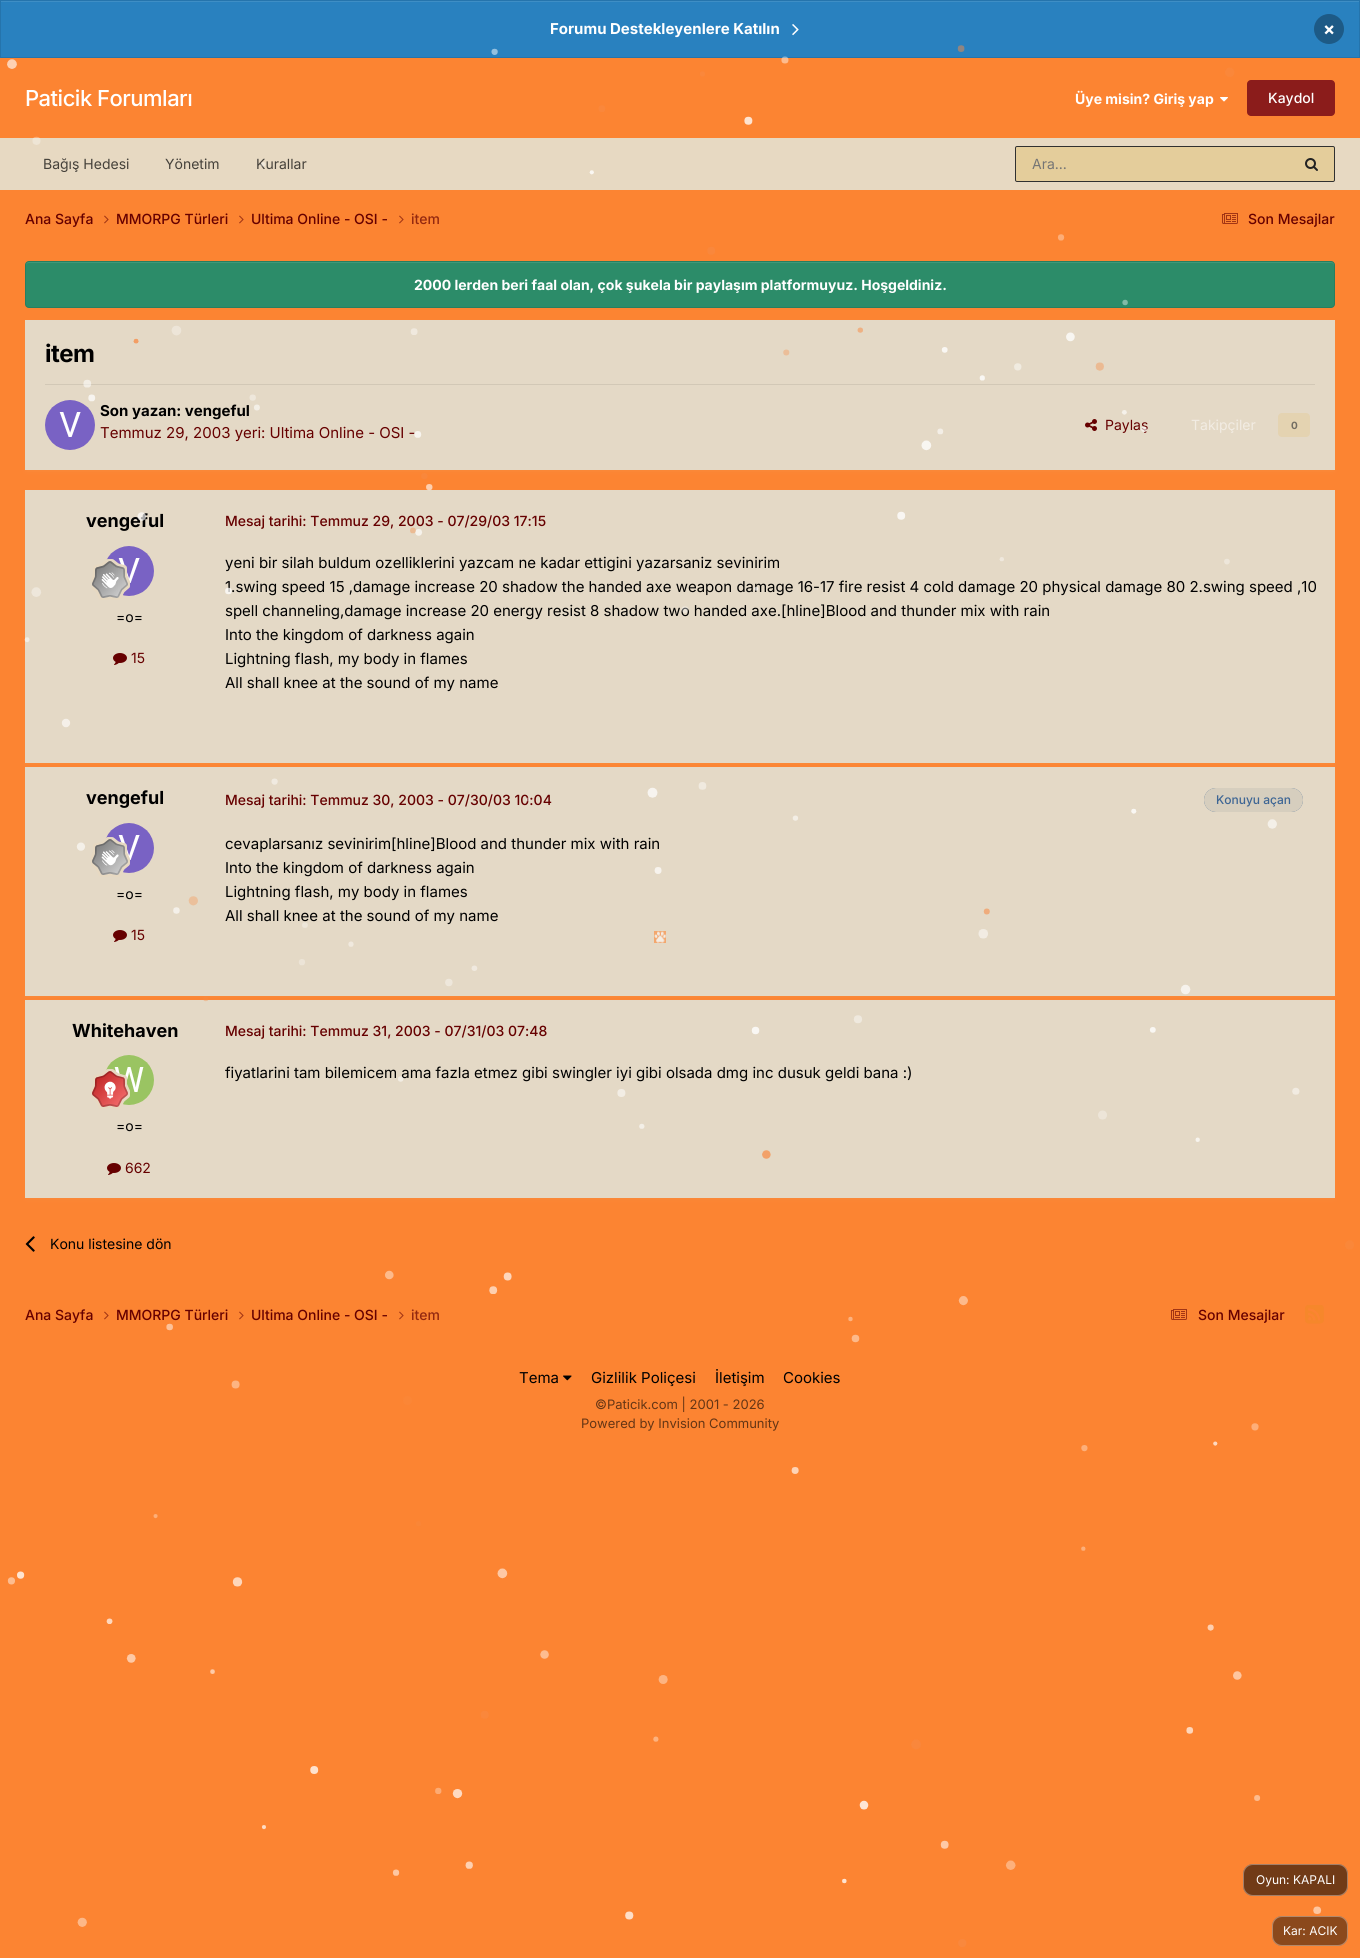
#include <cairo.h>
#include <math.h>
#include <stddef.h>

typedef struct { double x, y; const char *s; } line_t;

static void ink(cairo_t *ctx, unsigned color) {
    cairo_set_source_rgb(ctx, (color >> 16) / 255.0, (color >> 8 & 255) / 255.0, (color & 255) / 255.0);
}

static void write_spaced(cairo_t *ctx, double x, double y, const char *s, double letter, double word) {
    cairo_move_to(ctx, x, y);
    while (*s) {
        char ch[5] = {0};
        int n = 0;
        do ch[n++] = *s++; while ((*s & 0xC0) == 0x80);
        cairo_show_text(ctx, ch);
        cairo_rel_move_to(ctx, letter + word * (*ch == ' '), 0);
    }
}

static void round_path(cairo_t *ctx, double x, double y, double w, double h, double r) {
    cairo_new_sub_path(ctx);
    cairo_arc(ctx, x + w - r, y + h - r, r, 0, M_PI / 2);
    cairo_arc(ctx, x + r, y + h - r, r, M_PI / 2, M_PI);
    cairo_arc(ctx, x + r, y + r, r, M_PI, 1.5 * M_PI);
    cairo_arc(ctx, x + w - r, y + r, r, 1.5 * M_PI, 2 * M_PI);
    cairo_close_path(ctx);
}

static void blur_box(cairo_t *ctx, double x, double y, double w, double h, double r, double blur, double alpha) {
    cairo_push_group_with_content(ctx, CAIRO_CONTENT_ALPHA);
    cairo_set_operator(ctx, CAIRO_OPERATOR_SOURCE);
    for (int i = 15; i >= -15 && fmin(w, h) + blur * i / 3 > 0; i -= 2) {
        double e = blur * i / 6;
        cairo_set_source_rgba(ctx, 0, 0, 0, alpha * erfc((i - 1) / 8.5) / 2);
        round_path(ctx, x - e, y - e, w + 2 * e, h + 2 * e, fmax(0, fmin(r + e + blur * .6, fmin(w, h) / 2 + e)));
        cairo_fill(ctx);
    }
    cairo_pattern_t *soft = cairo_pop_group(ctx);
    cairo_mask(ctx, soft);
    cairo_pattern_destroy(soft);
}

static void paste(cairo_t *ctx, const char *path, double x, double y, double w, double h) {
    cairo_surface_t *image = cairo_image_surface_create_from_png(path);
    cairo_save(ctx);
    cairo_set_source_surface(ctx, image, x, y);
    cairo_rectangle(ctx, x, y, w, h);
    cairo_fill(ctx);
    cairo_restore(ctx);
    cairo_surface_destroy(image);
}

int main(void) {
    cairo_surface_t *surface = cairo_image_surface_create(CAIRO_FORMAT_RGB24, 1360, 1958);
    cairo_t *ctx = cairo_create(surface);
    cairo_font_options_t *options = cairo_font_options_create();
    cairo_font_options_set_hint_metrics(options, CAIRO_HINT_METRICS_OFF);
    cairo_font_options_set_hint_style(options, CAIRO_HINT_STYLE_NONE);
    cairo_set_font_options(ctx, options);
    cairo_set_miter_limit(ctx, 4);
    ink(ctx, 0xFC8432);
    cairo_paint(ctx);
    ink(ctx, 0x2981BF);
    cairo_rectangle(ctx, 1, 2, 1358, 55);
    cairo_fill(ctx);
    ink(ctx, 0x3E8EC5);
    cairo_rectangle(ctx, 1, 1, 1358, 1);
    cairo_fill(ctx);
    cairo_rectangle(ctx, 0.5, 0.5, 1359, 57);
    ink(ctx, 0x2574AC);
    cairo_set_line_width(ctx, 1);
    cairo_stroke(ctx);
    cairo_select_font_face(ctx, "Inter", CAIRO_FONT_SLANT_NORMAL, CAIRO_FONT_WEIGHT_BOLD);
    cairo_set_font_size(ctx, 15);
    ink(ctx, 0xFFFFFF);
    cairo_move_to(ctx, 550, 34);
    cairo_show_text(ctx, "Forumu Destekleyenlere Katılın");
    paste(ctx, "media/1.png", 792, 24, 7, 12);
    ink(ctx, 0x1D5A86);
    cairo_arc(ctx, 1329, 29, 15, 0, 2 * M_PI);
    cairo_fill(ctx);
    cairo_set_font_size(ctx, 18);
    ink(ctx, 0xFFFFFF);
    cairo_move_to(ctx, 1323, 35);
    cairo_show_text(ctx, "×");
    cairo_select_font_face(ctx, "Inter Medium", CAIRO_FONT_SLANT_NORMAL, CAIRO_FONT_WEIGHT_NORMAL);
    cairo_set_font_size(ctx, 22);
    write_spaced(ctx, 25, 106, "Paticik Forumları", -0.5, 0);
    cairo_select_font_face(ctx, "Inter", CAIRO_FONT_SLANT_NORMAL, CAIRO_FONT_WEIGHT_BOLD);
    cairo_set_font_size(ctx, 14);
    cairo_move_to(ctx, 1075, 104);
    cairo_show_text(ctx, "Üye misin? Giriş yap");
    paste(ctx, "media/3.png", 1220, 97, 8, 5);
    ink(ctx, 0x8B1C1B);
    round_path(ctx, 1247, 80, 88, 36, 4);
    cairo_fill(ctx);
    cairo_select_font_face(ctx, "Inter Medium", CAIRO_FONT_SLANT_NORMAL, CAIRO_FONT_WEIGHT_NORMAL);
    ink(ctx, 0xFFFFFF);
    cairo_move_to(ctx, 1268, 103);
    cairo_show_text(ctx, "Kaydol");
    ink(ctx, 0xE7D9C2);
    cairo_rectangle(ctx, 0, 138, 1360, 52);
    cairo_fill(ctx);
    cairo_select_font_face(ctx, "Inter", CAIRO_FONT_SLANT_NORMAL, CAIRO_FONT_WEIGHT_NORMAL);
    ink(ctx, 0x45413A);
    {
        static const line_t items[] = {
            {43, 169, "Bağış Hedesi"},
            {165, 169, "Yönetim"},
            {256, 169, "Kurallar"},
        };
        for (size_t i = 0; i < sizeof items / sizeof *items; i++) {
            cairo_move_to(ctx, items[i].x, items[i].y);
            cairo_show_text(ctx, items[i].s);
        }
    }
    ink(ctx, 0xE4CD9B);
    round_path(ctx, 1015.5, 146.5, 319, 35, 1.5);
    cairo_fill_preserve(ctx);
    ink(ctx, 0x303030);
    cairo_stroke(ctx);
    ink(ctx, 0x757575);
    cairo_move_to(ctx, 1032, 169);
    cairo_show_text(ctx, "Ara...");
    paste(ctx, "media/4.png", 1305, 158, 13, 13);
    cairo_select_font_face(ctx, "Inter Medium", CAIRO_FONT_SLANT_NORMAL, CAIRO_FONT_WEIGHT_NORMAL);
    ink(ctx, 0x660000);
    cairo_move_to(ctx, 25, 224);
    cairo_show_text(ctx, "Ana Sayfa");
    paste(ctx, "media/5.png", 104, 215, 5, 9);
    cairo_move_to(ctx, 116, 224);
    cairo_show_text(ctx, "MMORPG Türleri");
    paste(ctx, "media/5.png", 239, 215, 5, 9);
    cairo_move_to(ctx, 251, 224);
    cairo_show_text(ctx, "Ultima Online - OSI -");
    paste(ctx, "media/5.png", 399, 215, 5, 9);
    ink(ctx, 0x93280F);
    cairo_move_to(ctx, 411, 224);
    cairo_show_text(ctx, "item");
    paste(ctx, "media/6.png", 1222, 213, 16, 11);
    ink(ctx, 0x660000);
    cairo_move_to(ctx, 1248, 224);
    cairo_show_text(ctx, "Son Mesajlar");
    ink(ctx, 0x2C8C69);
    round_path(ctx, 25, 261, 1310, 47, 4);
    cairo_fill(ctx);
    ink(ctx, 0x419878);
    cairo_new_path(ctx);
    cairo_move_to(ctx, 29, 263);
    cairo_line_to(ctx, 1331, 263);
    cairo_curve_to(ctx, 1333, 263, 1334, 264, 1334, 266);
    cairo_line_to(ctx, 1334, 265);
    cairo_curve_to(ctx, 1334, 263, 1333, 262, 1331, 262);
    cairo_line_to(ctx, 29, 262);
    cairo_curve_to(ctx, 27, 262, 26, 263, 26, 265);
    cairo_line_to(ctx, 26, 266);
    cairo_curve_to(ctx, 26, 264, 27, 263, 29, 263);
    cairo_close_path(ctx);
    cairo_fill(ctx);
    round_path(ctx, 25.5, 261.5, 1309, 46, 3.5);
    cairo_set_source_rgba(ctx, 0, 0, 0, 0.1);
    cairo_stroke(ctx);
    cairo_select_font_face(ctx, "Inter", CAIRO_FONT_SLANT_NORMAL, CAIRO_FONT_WEIGHT_BOLD);
    ink(ctx, 0xFFFFFF);
    cairo_move_to(ctx, 414, 290);
    cairo_show_text(ctx, "2000 lerden beri faal olan, çok şukela bir paylaşım platformuyuz. Hoşgeldiniz.");
    ink(ctx, 0xE3CD9C);
    blur_box(ctx, 26, 323, 1308, 148, 0, 2, 0.1);
    ink(ctx, 0xE4D9C6);
    cairo_rectangle(ctx, 25, 320, 1310, 150);
    cairo_fill(ctx);
    cairo_set_font_size(ctx, 24);
    ink(ctx, 0x000000);
    write_spaced(ctx, 45, 362, "item", -0.5, 0);
    ink(ctx, 0xD2C8B6);
    cairo_rectangle(ctx, 45, 384, 1270, 1);
    cairo_fill(ctx);
    ink(ctx, 0xE7D9C2);
    cairo_arc(ctx, 70, 425, 25, 0, 2 * M_PI);
    cairo_fill(ctx);
    paste(ctx, "media/7.png", 45, 400, 50, 50);
    cairo_set_font_size(ctx, 15);
    ink(ctx, 0x000000);
    cairo_move_to(ctx, 100, 416);
    cairo_show_text(ctx, "Son yazan: vengeful");
    cairo_select_font_face(ctx, "Inter", CAIRO_FONT_SLANT_NORMAL, CAIRO_FONT_WEIGHT_NORMAL);
    ink(ctx, 0x660000);
    cairo_move_to(ctx, 100, 438);
    cairo_show_text(ctx, "Temmuz 29, 2003 yeri: Ultima Online - OSI -");
    paste(ctx, "media/8.png", 1085, 419, 12, 12);
    cairo_set_font_size(ctx, 14);
    cairo_move_to(ctx, 1105, 430);
    cairo_show_text(ctx, "Paylaş");
    ink(ctx, 0xF2ECE3);
    cairo_move_to(ctx, 1191, 430);
    cairo_show_text(ctx, "Takipçiler");
    ink(ctx, 0xE4D3B1);
    round_path(ctx, 1278, 413, 32, 24, 4);
    cairo_fill(ctx);
    cairo_select_font_face(ctx, "Inter", CAIRO_FONT_SLANT_NORMAL, CAIRO_FONT_WEIGHT_BOLD);
    cairo_set_font_size(ctx, 10);
    ink(ctx, 0x726D63);
    cairo_move_to(ctx, 1291, 429);
    cairo_show_text(ctx, "0");
    ink(ctx, 0xE3CD9C);
    blur_box(ctx, 26, 493, 1308, 271, 0, 2, 0.1);
    ink(ctx, 0xE4D9C6);
    cairo_rectangle(ctx, 25, 490, 1310, 273);
    cairo_fill(ctx);
    cairo_set_font_size(ctx, 18);
    ink(ctx, 0x000000);
    cairo_move_to(ctx, 86, 527);
    cairo_show_text(ctx, "vengeful");
    ink(ctx, 0xE7D9C2);
    cairo_new_path(ctx);
    cairo_arc(ctx, 129, 571, 25, 0, 2 * M_PI);
    cairo_fill(ctx);
    paste(ctx, "media/9.png", 106, 546, 48, 50);
    paste(ctx, "media/10.png", 92, 559, 38, 41);
    cairo_select_font_face(ctx, "Inter", CAIRO_FONT_SLANT_NORMAL, CAIRO_FONT_WEIGHT_NORMAL);
    cairo_set_font_size(ctx, 14);
    ink(ctx, 0x000000);
    cairo_move_to(ctx, 116, 622);
    cairo_show_text(ctx, "=o=");
    paste(ctx, "media/11.png", 113, 653, 14, 12);
    ink(ctx, 0x660000);
    cairo_move_to(ctx, 131, 663);
    cairo_show_text(ctx, "15");
    cairo_select_font_face(ctx, "Inter Medium", CAIRO_FONT_SLANT_NORMAL, CAIRO_FONT_WEIGHT_NORMAL);
    cairo_move_to(ctx, 225, 526);
    cairo_show_text(ctx, "Mesaj tarihi: Temmuz 29, 2003 - 07/29/03 17:15");
    cairo_select_font_face(ctx, "Inter", CAIRO_FONT_SLANT_NORMAL, CAIRO_FONT_WEIGHT_NORMAL);
    cairo_set_font_size(ctx, 15);
    ink(ctx, 0x000000);
    {
        static const line_t items[] = {
            {225, 568, "yeni bir silah buldum ozelliklerini yazcam ne kadar ettigini yazarsaniz sevinirim"},
            {225, 592, "1.swing speed 15 ,damage increase 20 shadow the handed axe weapon damage 16-17 fire resist 4 cold damage 20 physical damage 80 2.swing speed ,10"},
            {225, 616, "spell channeling,damage increase 20 energy resist 8 shadow two handed axe.[hline]Blood and thunder mix with rain"},
            {225, 640, "Into the kingdom of darkness again"},
            {225, 664, "Lightning flash, my body in flames"},
            {225, 688, "All shall knee at the sound of my name"},
        };
        for (size_t i = 0; i < sizeof items / sizeof *items; i++) {
            cairo_move_to(ctx, items[i].x, items[i].y);
            cairo_show_text(ctx, items[i].s);
        }
    }
    ink(ctx, 0xE3CD9C);
    blur_box(ctx, 26, 770, 1308, 227, 0, 2, 0.1);
    ink(ctx, 0xE4D9C6);
    cairo_rectangle(ctx, 25, 767, 1310, 229);
    cairo_fill(ctx);
    cairo_select_font_face(ctx, "Inter", CAIRO_FONT_SLANT_NORMAL, CAIRO_FONT_WEIGHT_BOLD);
    cairo_set_font_size(ctx, 18);
    ink(ctx, 0x000000);
    cairo_move_to(ctx, 86, 804);
    cairo_show_text(ctx, "vengeful");
    ink(ctx, 0xE7D9C2);
    cairo_new_path(ctx);
    cairo_arc(ctx, 129, 848, 25, 0, 2 * M_PI);
    cairo_fill(ctx);
    paste(ctx, "media/12.png", 105, 823, 49, 50);
    paste(ctx, "media/13.png", 91, 837, 39, 40);
    cairo_select_font_face(ctx, "Inter", CAIRO_FONT_SLANT_NORMAL, CAIRO_FONT_WEIGHT_NORMAL);
    cairo_set_font_size(ctx, 14);
    ink(ctx, 0x000000);
    cairo_move_to(ctx, 116, 899);
    cairo_show_text(ctx, "=o=");
    paste(ctx, "media/11.png", 113, 930, 14, 12);
    ink(ctx, 0x660000);
    cairo_move_to(ctx, 131, 940);
    cairo_show_text(ctx, "15");
    cairo_select_font_face(ctx, "Inter Medium", CAIRO_FONT_SLANT_NORMAL, CAIRO_FONT_WEIGHT_NORMAL);
    cairo_move_to(ctx, 225, 805);
    cairo_show_text(ctx, "Mesaj tarihi: Temmuz 30, 2003 - 07/30/03 10:04");
    ink(ctx, 0x3D6594);
    round_path(ctx, 1204, 788, 99, 24, 12);
    cairo_fill(ctx);
    cairo_set_source_rgba(ctx, 0.906, 0.851, 0.761, 0.9);
    round_path(ctx, 1204, 788, 99, 24, 12);
    cairo_fill(ctx);
    cairo_set_font_size(ctx, 12);
    ink(ctx, 0x3D6594);
    cairo_move_to(ctx, 1216, 804);
    cairo_show_text(ctx, "Konuyu açan");
    cairo_select_font_face(ctx, "Inter", CAIRO_FONT_SLANT_NORMAL, CAIRO_FONT_WEIGHT_NORMAL);
    cairo_set_font_size(ctx, 15);
    ink(ctx, 0x000000);
    {
        static const line_t items[] = {
            {225, 849, "cevaplarsanız sevinirim[hline]Blood and thunder mix with rain"},
            {225, 873, "Into the kingdom of darkness again"},
            {225, 897, "Lightning flash, my body in flames"},
            {225, 921, "All shall knee at the sound of my name"},
        };
        for (size_t i = 0; i < sizeof items / sizeof *items; i++) {
            cairo_move_to(ctx, items[i].x, items[i].y);
            cairo_show_text(ctx, items[i].s);
        }
    }
    ink(ctx, 0xE3CD9C);
    blur_box(ctx, 26, 1003, 1308, 196, 0, 2, 0.1);
    ink(ctx, 0xE4D9C6);
    cairo_rectangle(ctx, 25, 1000, 1310, 198);
    cairo_fill(ctx);
    cairo_select_font_face(ctx, "Inter", CAIRO_FONT_SLANT_NORMAL, CAIRO_FONT_WEIGHT_BOLD);
    cairo_set_font_size(ctx, 18);
    ink(ctx, 0x000000);
    cairo_move_to(ctx, 72, 1037);
    cairo_show_text(ctx, "Whitehaven");
    ink(ctx, 0xE7D9C2);
    cairo_new_path(ctx);
    cairo_arc(ctx, 129, 1080, 25, 0, 2 * M_PI);
    cairo_fill(ctx);
    paste(ctx, "media/14.png", 105, 1055, 49, 50);
    paste(ctx, "media/15.png", 91, 1069, 39, 40);
    cairo_select_font_face(ctx, "Inter", CAIRO_FONT_SLANT_NORMAL, CAIRO_FONT_WEIGHT_NORMAL);
    cairo_set_font_size(ctx, 14);
    ink(ctx, 0x000000);
    cairo_move_to(ctx, 116, 1131);
    cairo_show_text(ctx, "=o=");
    paste(ctx, "media/11.png", 107, 1163, 14, 12);
    ink(ctx, 0x660000);
    cairo_move_to(ctx, 125, 1173);
    cairo_show_text(ctx, "662");
    cairo_select_font_face(ctx, "Inter Medium", CAIRO_FONT_SLANT_NORMAL, CAIRO_FONT_WEIGHT_NORMAL);
    cairo_move_to(ctx, 225, 1036);
    cairo_show_text(ctx, "Mesaj tarihi: Temmuz 31, 2003 - 07/31/03 07:48");
    cairo_select_font_face(ctx, "Inter", CAIRO_FONT_SLANT_NORMAL, CAIRO_FONT_WEIGHT_NORMAL);
    cairo_set_font_size(ctx, 15);
    ink(ctx, 0x000000);
    cairo_move_to(ctx, 225, 1078);
    cairo_show_text(ctx, "fiyatlarini tam bilemicem ama fazla etmez gibi swingler iyi gibi olsada dmg inc dusuk geldi bana :)");
    paste(ctx, "media/16.png", 25, 1236, 10, 16);
    cairo_set_font_size(ctx, 14);
    cairo_move_to(ctx, 50, 1249);
    cairo_show_text(ctx, "Konu listesine dön");
    cairo_select_font_face(ctx, "Inter Medium", CAIRO_FONT_SLANT_NORMAL, CAIRO_FONT_WEIGHT_NORMAL);
    ink(ctx, 0x660000);
    cairo_move_to(ctx, 25, 1320);
    cairo_show_text(ctx, "Ana Sayfa");
    paste(ctx, "media/5.png", 104, 1311, 5, 9);
    cairo_move_to(ctx, 116, 1320);
    cairo_show_text(ctx, "MMORPG Türleri");
    paste(ctx, "media/5.png", 239, 1311, 5, 9);
    cairo_move_to(ctx, 251, 1320);
    cairo_show_text(ctx, "Ultima Online - OSI -");
    paste(ctx, "media/5.png", 399, 1311, 5, 9);
    ink(ctx, 0x93280F);
    cairo_move_to(ctx, 411, 1320);
    cairo_show_text(ctx, "item");
    paste(ctx, "media/6.png", 1171, 1309, 16, 11);
    ink(ctx, 0x660000);
    cairo_move_to(ctx, 1198, 1320);
    cairo_show_text(ctx, "Son Mesajlar");
    paste(ctx, "media/17.png", 1305, 1305, 19, 19);
    cairo_select_font_face(ctx, "Inter", CAIRO_FONT_SLANT_NORMAL, CAIRO_FONT_WEIGHT_NORMAL);
    cairo_set_font_size(ctx, 15);
    ink(ctx, 0x000000);
    cairo_move_to(ctx, 519, 1383);
    cairo_show_text(ctx, "Tema");
    paste(ctx, "media/18.png", 563, 1375, 9, 6);
    {
        static const line_t items[] = {
            {591, 1383, "Gizlilik Poliçesi"},
            {715, 1383, "İletişim"},
            {783, 1383, "Cookies"},
        };
        for (size_t i = 0; i < sizeof items / sizeof *items; i++) {
            cairo_move_to(ctx, items[i].x, items[i].y);
            cairo_show_text(ctx, items[i].s);
        }
    }
    cairo_set_font_size(ctx, 13);
    ink(ctx, 0x653514);
    cairo_move_to(ctx, 595, 1409);
    cairo_show_text(ctx, "©Paticik.com | 2001 - 2026");
    cairo_move_to(ctx, 581, 1428);
    cairo_show_text(ctx, "Powered by Invision Community");
    paste(ctx, "media/2.png", 7, 45, 1347, 1902);
    ink(ctx, 0x713B17);
    round_path(ctx, 1243, 1864, 105, 32, 10);
    cairo_fill(ctx);
    round_path(ctx, 1243.5, 1864.5, 104, 31, 9.5);
    cairo_set_source_rgba(ctx, 1, 1, 1, 0.35);
    cairo_stroke(ctx);
    cairo_set_font_size(ctx, 12);
    ink(ctx, 0xFFFFFF);
    cairo_move_to(ctx, 1256, 1884);
    cairo_show_text(ctx, "Oyun: KAPALI");
    ink(ctx, 0x8B491C);
    round_path(ctx, 1272, 1916, 76, 30, 10);
    cairo_fill(ctx);
    round_path(ctx, 1272.5, 1916.5, 75, 29, 9.5);
    cairo_set_source_rgba(ctx, 1, 1, 1, 0.35);
    cairo_stroke(ctx);
    ink(ctx, 0xFFFFFF);
    cairo_move_to(ctx, 1283, 1935);
    cairo_show_text(ctx, "Kar: ACIK");
    cairo_surface_write_to_png(surface, "image.png");
    cairo_font_options_destroy(options);
    cairo_destroy(ctx);
    cairo_surface_destroy(surface);
    return 0;
}
